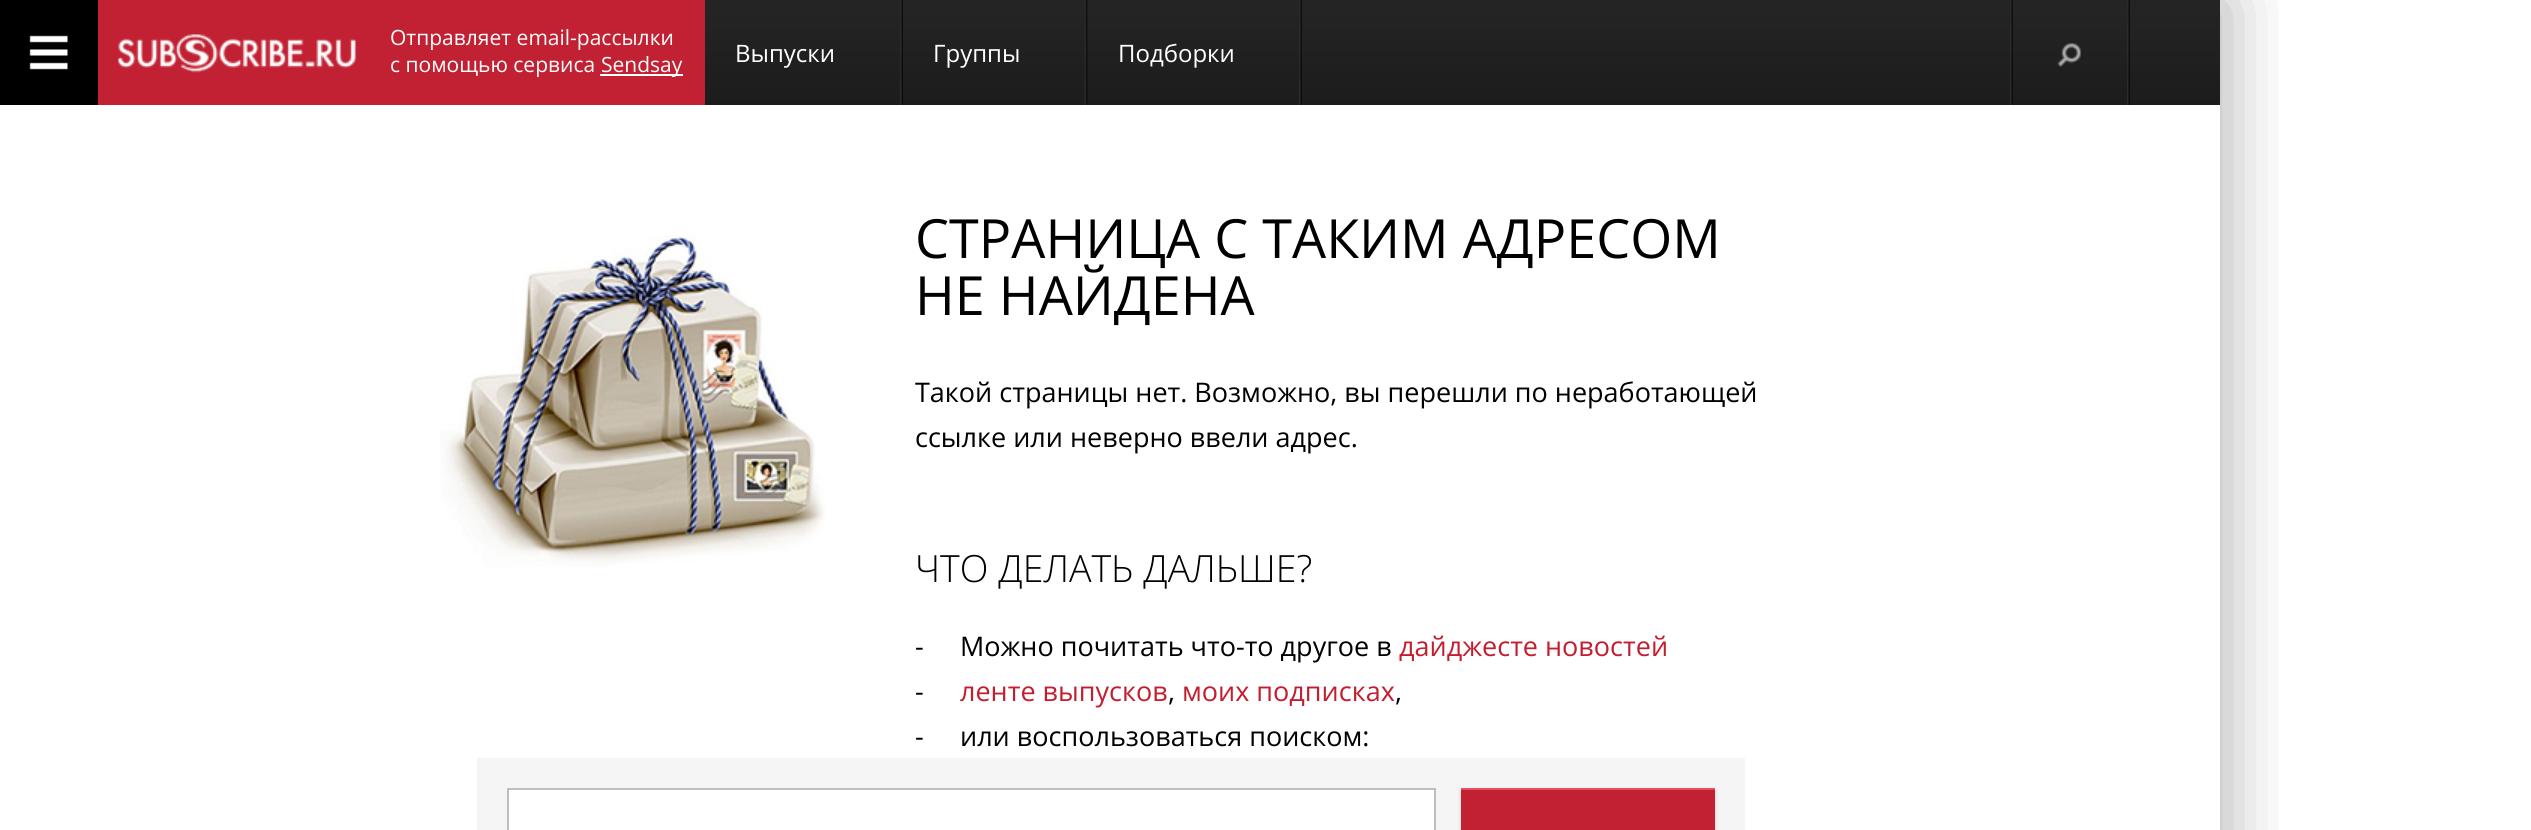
#include <cairo.h>
#include <math.h>
#include <stddef.h>

typedef struct { double x, y; const char *s; } line_t;

static void ink(cairo_t *ctx, unsigned color) {
    cairo_set_source_rgb(ctx, (color >> 16) / 255.0, (color >> 8 & 255) / 255.0, (color & 255) / 255.0);
}

static void round_path(cairo_t *ctx, double x, double y, double w, double h, double r) {
    cairo_new_sub_path(ctx);
    cairo_arc(ctx, x + w - r, y + h - r, r, 0, M_PI / 2);
    cairo_arc(ctx, x + r, y + h - r, r, M_PI / 2, M_PI);
    cairo_arc(ctx, x + r, y + r, r, M_PI, 1.5 * M_PI);
    cairo_arc(ctx, x + w - r, y + r, r, 1.5 * M_PI, 2 * M_PI);
    cairo_close_path(ctx);
}

static void blur_box(cairo_t *ctx, double x, double y, double w, double h, double r, double blur, double alpha) {
    cairo_push_group_with_content(ctx, CAIRO_CONTENT_ALPHA);
    cairo_set_operator(ctx, CAIRO_OPERATOR_SOURCE);
    for (int i = 15; i >= -15 && fmin(w, h) + blur * i / 3 > 0; i -= 2) {
        double e = blur * i / 6;
        cairo_set_source_rgba(ctx, 0, 0, 0, alpha * erfc((i - 1) / 8.5) / 2);
        round_path(ctx, x - e, y - e, w + 2 * e, h + 2 * e, fmax(0, fmin(r + e + blur * .6, fmin(w, h) / 2 + e)));
        cairo_fill(ctx);
    }
    cairo_pattern_t *soft = cairo_pop_group(ctx);
    cairo_mask(ctx, soft);
    cairo_pattern_destroy(soft);
}

static void paste(cairo_t *ctx, const char *path, double x, double y, double w, double h) {
    cairo_surface_t *image = cairo_image_surface_create_from_png(path);
    cairo_save(ctx);
    cairo_set_source_surface(ctx, image, x, y);
    cairo_rectangle(ctx, x, y, w, h);
    cairo_fill(ctx);
    cairo_restore(ctx);
    cairo_surface_destroy(image);
}

int main(void) {
    cairo_surface_t *surface = cairo_image_surface_create(CAIRO_FORMAT_RGB24, 2531, 830);
    cairo_t *ctx = cairo_create(surface);
    cairo_font_options_t *options = cairo_font_options_create();
    cairo_font_options_set_hint_metrics(options, CAIRO_HINT_METRICS_OFF);
    cairo_font_options_set_hint_style(options, CAIRO_HINT_STYLE_NONE);
    cairo_set_font_options(ctx, options);
    cairo_set_miter_limit(ctx, 4);
    ink(ctx, 0xFFFFFF);
    cairo_paint(ctx);
    cairo_save(ctx);
    cairo_rectangle(ctx, 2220, 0, 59, 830);
    cairo_clip(ctx);
    ink(ctx, 0x000000);
    blur_box(ctx, 8, 0, 2220, 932, 0, 34, 0.3);
    cairo_restore(ctx);
    paste(ctx, "media/1.png", 705, 0, 1515, 105);
    ink(ctx, 0x000000);
    cairo_rectangle(ctx, 0, 0, 98, 105);
    cairo_fill(ctx);
    paste(ctx, "media/2.png", 29, 35, 39, 35);
    ink(ctx, 0xC12133);
    cairo_rectangle(ctx, 98, 0, 607, 105);
    cairo_fill(ctx);
    paste(ctx, "media/3.png", 118, 34, 238, 39);
    cairo_select_font_face(ctx, "Open Sans", CAIRO_FONT_SLANT_NORMAL, CAIRO_FONT_WEIGHT_NORMAL);
    cairo_set_font_size(ctx, 21);
    ink(ctx, 0xFFFFFF);
    cairo_move_to(ctx, 390, 45);
    cairo_show_text(ctx, "Отправляет email-рассылки");
    cairo_move_to(ctx, 390, 72);
    cairo_show_text(ctx, "с помощью сервиса");
    cairo_rectangle(ctx, 600, 74, 83, 2);
    cairo_fill(ctx);
    cairo_move_to(ctx, 601, 72);
    cairo_show_text(ctx, "Sendsay");
    paste(ctx, "media/4.png", 900, 0, 3, 105);
    cairo_set_font_size(ctx, 24);
    cairo_move_to(ctx, 735, 62);
    cairo_show_text(ctx, "Выпуски");
    paste(ctx, "media/5.png", 1084, 0, 4, 105);
    cairo_move_to(ctx, 933, 62);
    cairo_show_text(ctx, "Группы");
    paste(ctx, "media/4.png", 1299, 0, 3, 105);
    cairo_move_to(ctx, 1118, 62);
    cairo_show_text(ctx, "Подборки");
    paste(ctx, "media/6.png", 2010, 0, 3, 105);
    paste(ctx, "media/7.png", 2127, 0, 3, 105);
    paste(ctx, "media/8.png", 2057, 43, 24, 24);
    paste(ctx, "media/9.png", 440, 234, 386, 333);
    cairo_set_font_size(ctx, 54);
    ink(ctx, 0x000000);
    cairo_move_to(ctx, 915, 258);
    cairo_show_text(ctx, "СТРАНИЦА С ТАКИМ АДРЕСОМ");
    cairo_move_to(ctx, 915, 315);
    cairo_show_text(ctx, "НЕ НАЙДЕНА");
    cairo_set_font_size(ctx, 27);
    cairo_move_to(ctx, 915, 402);
    cairo_show_text(ctx, "Такой страницы нет. Возможно, вы перешли по неработающей");
    cairo_move_to(ctx, 915, 447);
    cairo_show_text(ctx, "ссылке или неверно ввели адрес.");
    cairo_select_font_face(ctx, "Open Sans Light", CAIRO_FONT_SLANT_NORMAL, CAIRO_FONT_WEIGHT_NORMAL);
    cairo_set_font_size(ctx, 37.5);
    cairo_move_to(ctx, 915, 582);
    cairo_show_text(ctx, "ЧТО ДЕЛАТЬ ДАЛЬШЕ?");
    cairo_select_font_face(ctx, "Open Sans", CAIRO_FONT_SLANT_NORMAL, CAIRO_FONT_WEIGHT_NORMAL);
    cairo_set_font_size(ctx, 27);
    cairo_move_to(ctx, 915, 656);
    cairo_show_text(ctx, "-");
    cairo_move_to(ctx, 960, 656);
    cairo_show_text(ctx, "Можно почитать что-то другое в");
    ink(ctx, 0xC31E2F);
    cairo_move_to(ctx, 1399, 656);
    cairo_show_text(ctx, "дайджесте новостей");
    ink(ctx, 0x000000);
    cairo_move_to(ctx, 915, 701);
    cairo_show_text(ctx, "-");
    ink(ctx, 0xC31E2F);
    cairo_move_to(ctx, 960, 701);
    cairo_show_text(ctx, "ленте выпусков");
    cairo_move_to(ctx, 1182, 701);
    cairo_show_text(ctx, "моих подписках");
    ink(ctx, 0x000000);
    {
        static const line_t items[] = {
            {1168, 701, ","},
            {1395, 701, ","},
            {915, 746, "-"},
            {960, 746, "или воспользоваться поиском:"},
        };
        for (size_t i = 0; i < sizeof items / sizeof *items; i++) {
            cairo_move_to(ctx, items[i].x, items[i].y);
            cairo_show_text(ctx, items[i].s);
        }
    }
    ink(ctx, 0xF5F5F5);
    cairo_rectangle(ctx, 477, 758, 1268, 72);
    cairo_fill(ctx);
    ink(ctx, 0xFFFFFF);
    cairo_rectangle(ctx, 508, 789, 927, 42);
    cairo_fill_preserve(ctx);
    ink(ctx, 0xBEBEBE);
    cairo_stroke(ctx);
    ink(ctx, 0x000000);
    blur_box(ctx, 1461, 791, 254, 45, 0, 2, 0.2);
    ink(ctx, 0xC12133);
    cairo_rectangle(ctx, 1461, 790, 254, 40);
    cairo_fill(ctx);
    ink(ctx, 0xE94D5F);
    cairo_rectangle(ctx, 1461, 788, 254, 2);
    cairo_fill(ctx);
    cairo_surface_write_to_png(surface, "image.png");
    cairo_font_options_destroy(options);
    cairo_destroy(ctx);
    cairo_surface_destroy(surface);
    return 0;
}
